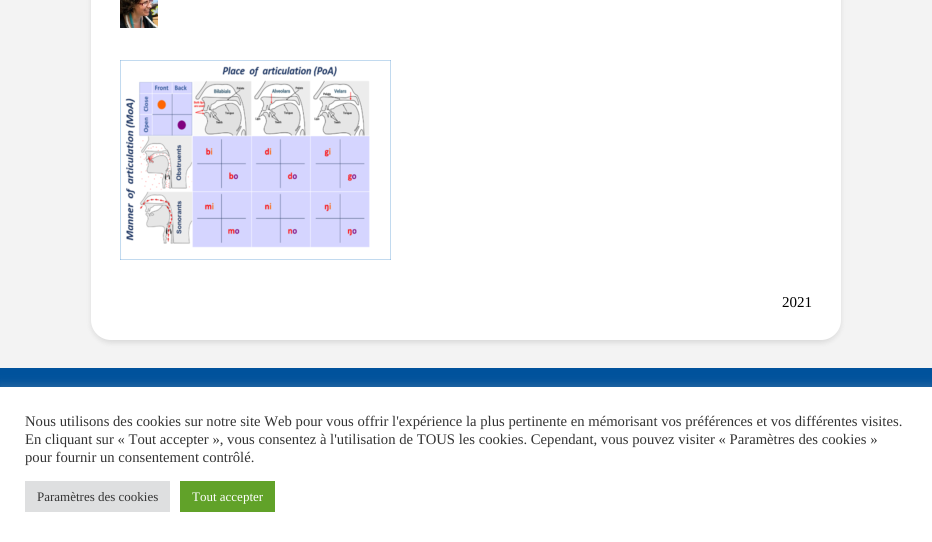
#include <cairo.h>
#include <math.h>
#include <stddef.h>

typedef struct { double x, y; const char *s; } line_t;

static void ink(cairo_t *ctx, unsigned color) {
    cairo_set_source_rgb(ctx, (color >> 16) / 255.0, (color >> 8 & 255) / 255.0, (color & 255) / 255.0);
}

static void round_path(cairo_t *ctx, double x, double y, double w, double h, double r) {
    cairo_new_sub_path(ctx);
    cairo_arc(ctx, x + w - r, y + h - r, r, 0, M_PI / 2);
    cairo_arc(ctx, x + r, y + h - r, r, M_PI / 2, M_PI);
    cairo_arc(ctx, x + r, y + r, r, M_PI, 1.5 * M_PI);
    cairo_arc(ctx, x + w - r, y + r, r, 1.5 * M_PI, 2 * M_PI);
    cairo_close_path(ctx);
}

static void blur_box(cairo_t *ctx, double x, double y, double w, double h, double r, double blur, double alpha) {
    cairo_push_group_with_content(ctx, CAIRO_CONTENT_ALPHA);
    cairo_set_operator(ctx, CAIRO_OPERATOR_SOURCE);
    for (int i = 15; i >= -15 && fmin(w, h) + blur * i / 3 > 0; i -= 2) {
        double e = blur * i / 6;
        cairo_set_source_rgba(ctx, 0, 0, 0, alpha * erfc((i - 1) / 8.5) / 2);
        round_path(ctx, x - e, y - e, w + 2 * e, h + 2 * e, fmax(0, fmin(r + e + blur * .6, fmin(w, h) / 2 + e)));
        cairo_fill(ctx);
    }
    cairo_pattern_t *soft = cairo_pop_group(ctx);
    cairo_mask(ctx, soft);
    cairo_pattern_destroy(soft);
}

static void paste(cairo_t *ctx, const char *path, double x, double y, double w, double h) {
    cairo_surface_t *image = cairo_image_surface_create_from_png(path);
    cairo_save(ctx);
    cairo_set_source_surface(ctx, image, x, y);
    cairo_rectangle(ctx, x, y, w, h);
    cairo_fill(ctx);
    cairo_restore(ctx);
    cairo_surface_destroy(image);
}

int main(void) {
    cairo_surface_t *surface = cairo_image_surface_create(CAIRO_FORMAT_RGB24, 932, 542);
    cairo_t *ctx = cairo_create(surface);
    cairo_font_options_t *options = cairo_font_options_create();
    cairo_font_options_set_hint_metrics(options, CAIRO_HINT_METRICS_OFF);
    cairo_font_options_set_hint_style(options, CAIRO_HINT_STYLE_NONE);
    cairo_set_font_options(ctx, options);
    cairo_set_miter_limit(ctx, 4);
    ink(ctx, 0xF3F3F3);
    cairo_paint(ctx);
    ink(ctx, 0x000101);
    blur_box(ctx, 91, -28, 750, 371, 20, 2.5, 0.1);
    ink(ctx, 0xFFFFFF);
    round_path(ctx, 91, -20, 750, 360, 20);
    cairo_fill(ctx);
    paste(ctx, "media/1.png", 120, 0, 38, 28);
    paste(ctx, "media/2.png", 120, 60, 271, 200);
    cairo_select_font_face(ctx, "Liberation Serif", CAIRO_FONT_SLANT_NORMAL, CAIRO_FONT_WEIGHT_NORMAL);
    cairo_set_font_size(ctx, 15);
    ink(ctx, 0x000000);
    cairo_move_to(ctx, 782, 307);
    cairo_show_text(ctx, "2021");
    ink(ctx, 0x00529C);
    cairo_rectangle(ctx, 0, 368, 932, 19);
    cairo_fill(ctx);
    ink(ctx, 0xACABAB);
    blur_box(ctx, 0, 386, 932, 155, 0, 5, 0.3);
    ink(ctx, 0xFFFFFF);
    cairo_rectangle(ctx, 0, 387, 932, 155);
    cairo_fill(ctx);
    cairo_set_font_size(ctx, 14.67);
    ink(ctx, 0x333333);
    {
        static const line_t items[] = {
            {25, 426, "Nous utilisons des cookies sur notre site Web pour vous offrir l'expérience la plus pertinente en mémorisant vos préférences et vos différentes visites."},
            {25, 444, "En cliquant sur « Tout accepter », vous consentez à l'utilisation de TOUS les cookies. Cependant, vous pouvez visiter « Paramètres des cookies »"},
            {25, 462, "pour fournir un consentement contrôlé."},
        };
        for (size_t i = 0; i < sizeof items / sizeof *items; i++) {
            cairo_move_to(ctx, items[i].x, items[i].y);
            cairo_show_text(ctx, items[i].s);
        }
    }
    ink(ctx, 0xDEDFE0);
    cairo_rectangle(ctx, 25, 481, 145, 31);
    cairo_fill(ctx);
    cairo_set_font_size(ctx, 13);
    ink(ctx, 0x333333);
    cairo_move_to(ctx, 37, 501);
    cairo_show_text(ctx, "Paramètres des cookies");
    ink(ctx, 0x61A229);
    cairo_rectangle(ctx, 180, 481, 95, 31);
    cairo_fill(ctx);
    ink(ctx, 0xFFFFFF);
    cairo_move_to(ctx, 192, 501);
    cairo_show_text(ctx, "Tout accepter");
    cairo_surface_write_to_png(surface, "image.png");
    cairo_font_options_destroy(options);
    cairo_destroy(ctx);
    cairo_surface_destroy(surface);
    return 0;
}
